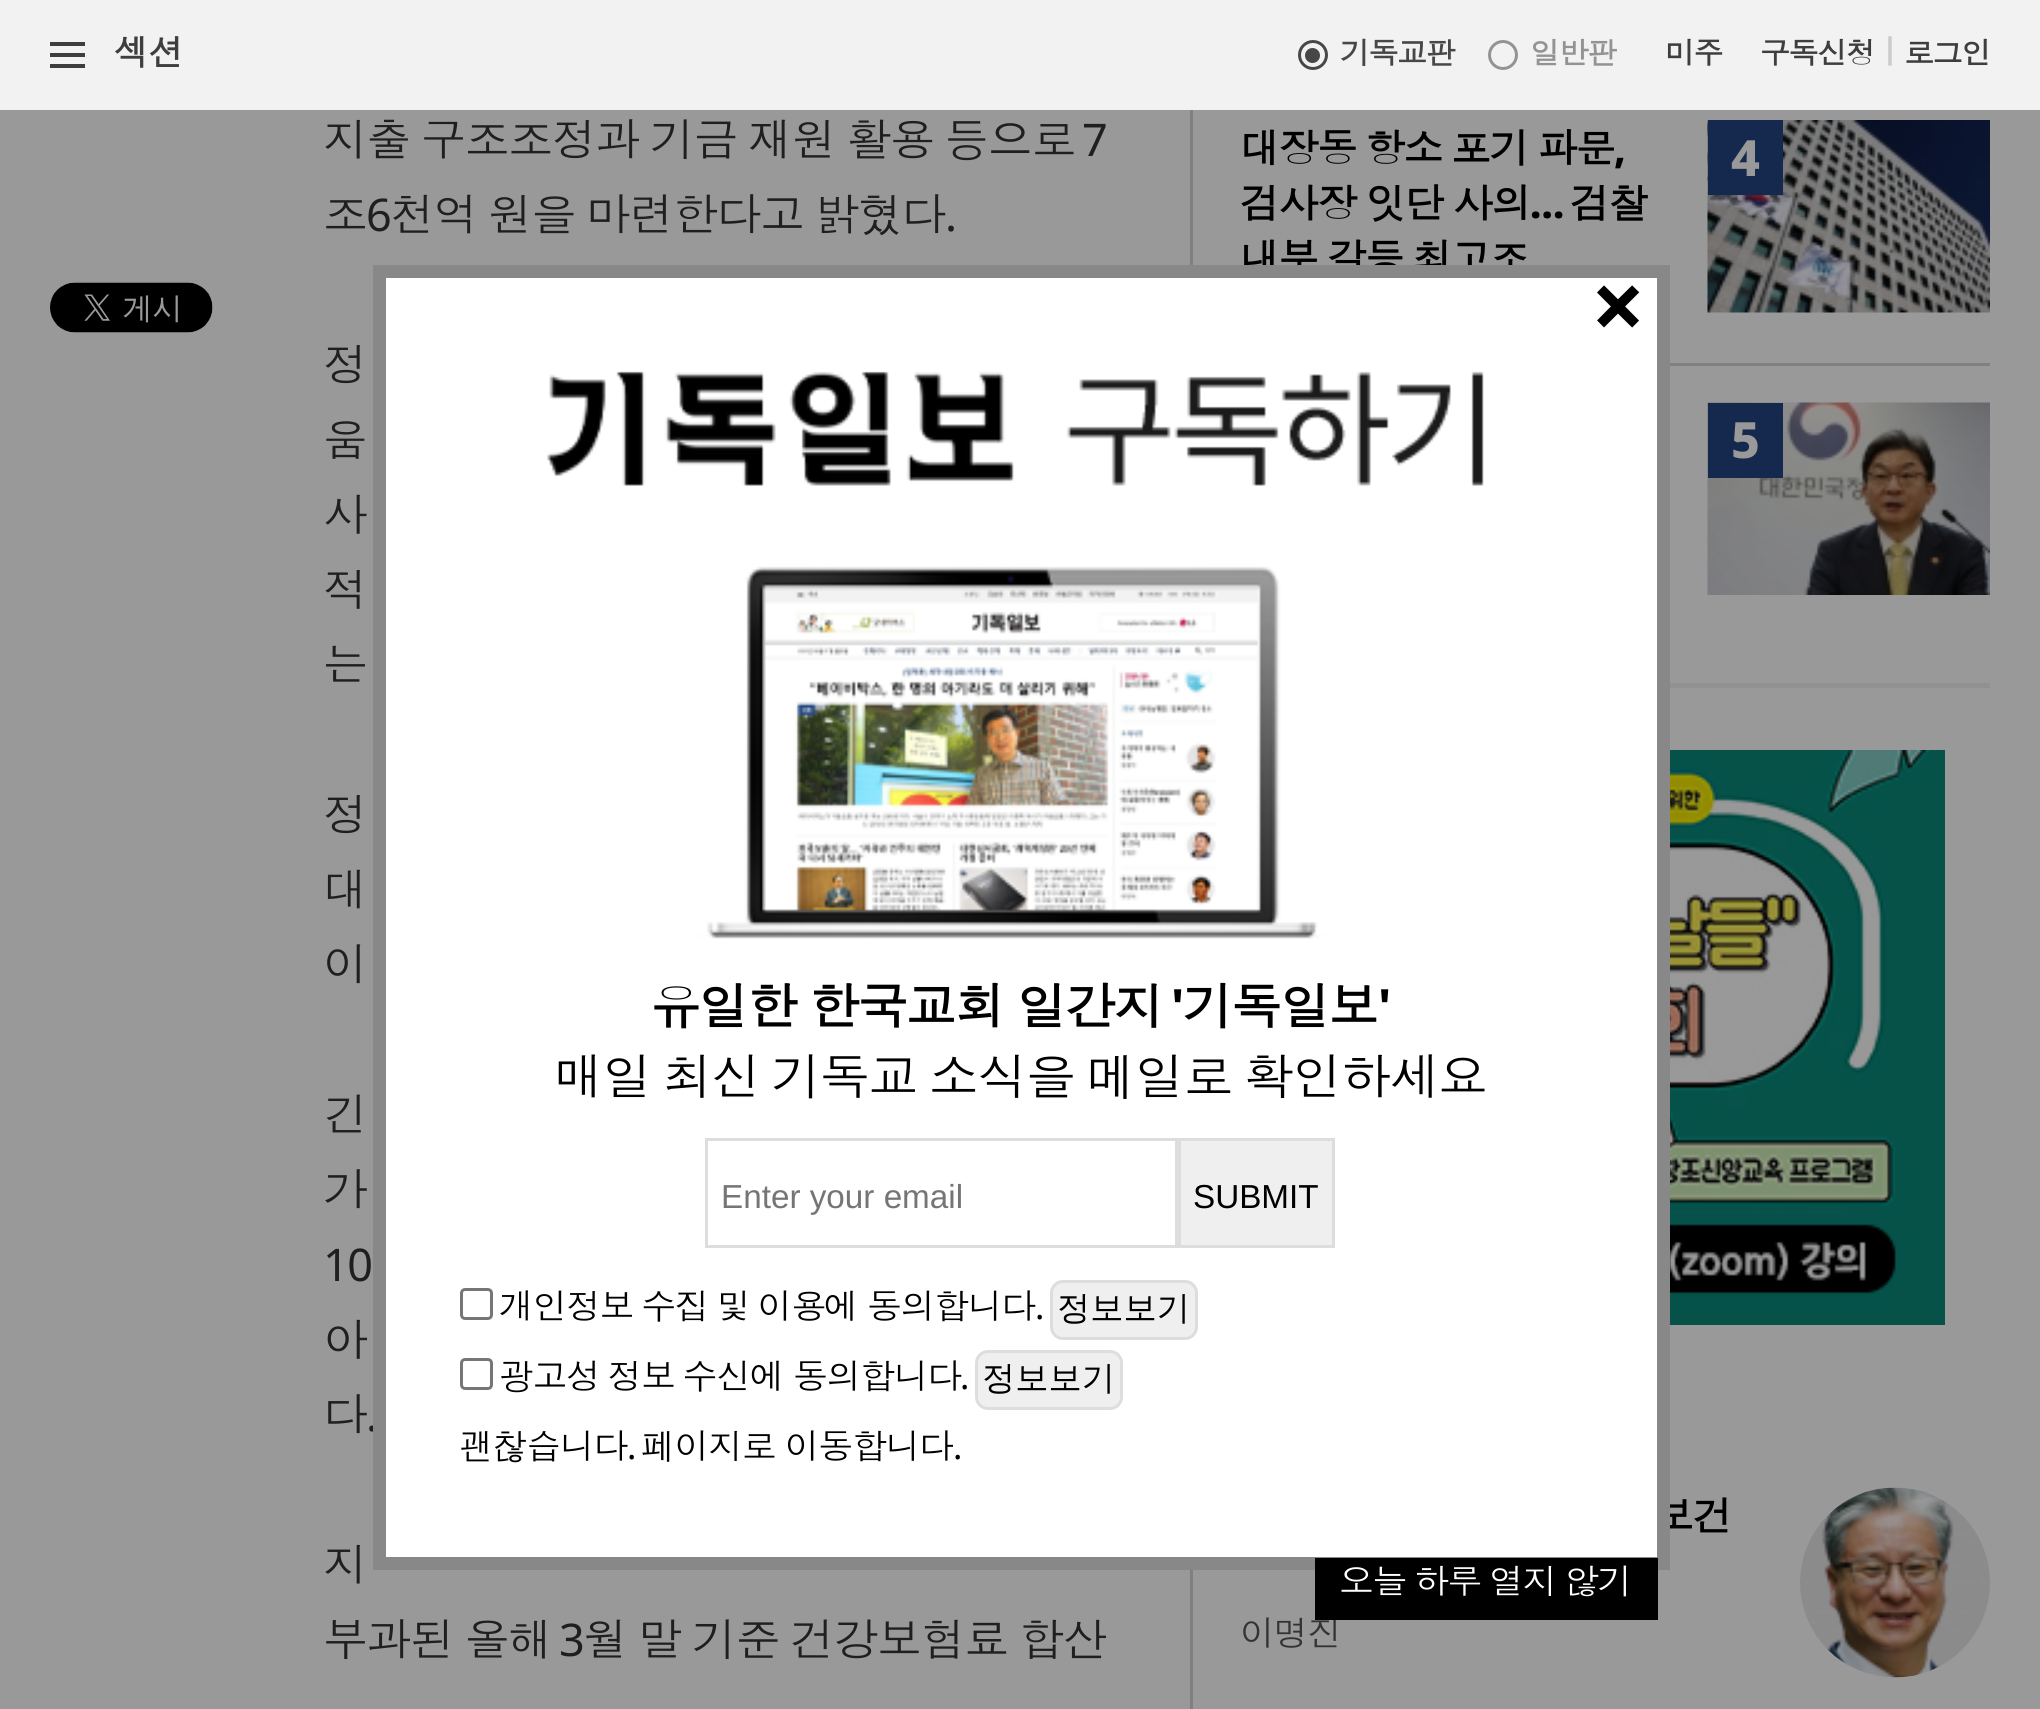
#include <cairo.h>
#include <math.h>
#include <stddef.h>


static void ink(cairo_t *ctx, unsigned color) {
    cairo_set_source_rgb(ctx, (color >> 16) / 255.0, (color >> 8 & 255) / 255.0, (color & 255) / 255.0);
}

static void write_spaced(cairo_t *ctx, double x, double y, const char *s, double letter, double word) {
    cairo_move_to(ctx, x, y);
    while (*s) {
        char ch[5] = {0};
        int n = 0;
        do ch[n++] = *s++; while ((*s & 0xC0) == 0x80);
        cairo_show_text(ctx, ch);
        cairo_rel_move_to(ctx, letter + word * (*ch == ' '), 0);
    }
}

static void round_path(cairo_t *ctx, double x, double y, double w, double h, double r) {
    cairo_new_sub_path(ctx);
    cairo_arc(ctx, x + w - r, y + h - r, r, 0, M_PI / 2);
    cairo_arc(ctx, x + r, y + h - r, r, M_PI / 2, M_PI);
    cairo_arc(ctx, x + r, y + r, r, M_PI, 1.5 * M_PI);
    cairo_arc(ctx, x + w - r, y + r, r, 1.5 * M_PI, 2 * M_PI);
    cairo_close_path(ctx);
}

static void paste(cairo_t *ctx, const char *path, double x, double y, double w, double h) {
    cairo_surface_t *image = cairo_image_surface_create_from_png(path);
    cairo_save(ctx);
    cairo_set_source_surface(ctx, image, x, y);
    cairo_rectangle(ctx, x, y, w, h);
    cairo_fill(ctx);
    cairo_restore(ctx);
    cairo_surface_destroy(image);
}

int main(void) {
    cairo_surface_t *surface = cairo_image_surface_create(CAIRO_FORMAT_RGB24, 2040, 1709);
    cairo_t *ctx = cairo_create(surface);
    cairo_font_options_t *options = cairo_font_options_create();
    cairo_font_options_set_hint_metrics(options, CAIRO_HINT_METRICS_OFF);
    cairo_font_options_set_hint_style(options, CAIRO_HINT_STYLE_NONE);
    cairo_set_font_options(ctx, options);
    cairo_set_miter_limit(ctx, 4);
    ink(ctx, 0x999999);
    cairo_paint(ctx);
    ink(ctx, 0xF2F2F2);
    cairo_rectangle(ctx, 0, 0, 2040, 110);
    cairo_fill(ctx);
    ink(ctx, 0x3E3E3E);
    cairo_new_path(ctx);
    cairo_move_to(ctx, 50, 68);
    cairo_line_to(ctx, 50, 64);
    cairo_line_to(ctx, 85, 64);
    cairo_line_to(ctx, 85, 68);
    cairo_close_path(ctx);
    cairo_move_to(ctx, 50, 42);
    cairo_line_to(ctx, 85, 42);
    cairo_line_to(ctx, 85, 46);
    cairo_line_to(ctx, 50, 46);
    cairo_close_path(ctx);
    cairo_move_to(ctx, 50, 57);
    cairo_line_to(ctx, 50, 53);
    cairo_line_to(ctx, 85, 53);
    cairo_line_to(ctx, 85, 57);
    cairo_close_path(ctx);
    cairo_fill(ctx);
    cairo_select_font_face(ctx, "Dotum", CAIRO_FONT_SLANT_NORMAL, CAIRO_FONT_WEIGHT_BOLD);
    cairo_set_font_size(ctx, 35);
    cairo_move_to(ctx, 114, 65);
    cairo_show_text(ctx, "섹션");
    cairo_new_path(ctx);
    cairo_arc(ctx, 1313, 55, 13.5, 0, 2 * M_PI);
    ink(ctx, 0x474747);
    cairo_set_line_width(ctx, 3);
    cairo_stroke(ctx);
    cairo_set_font_size(ctx, 30);
    write_spaced(ctx, 1340, 64, "기독교판", -1.4, 0);
    cairo_new_path(ctx);
    cairo_arc(ctx, 1312.5, 55.5, 7.5, 0, 2 * M_PI);
    cairo_fill(ctx);
    cairo_arc(ctx, 1503, 55, 13.5, 0, 2 * M_PI);
    ink(ctx, 0x939393);
    cairo_stroke(ctx);
    write_spaced(ctx, 1530, 64, "일반판", -1.4, 0);
    ink(ctx, 0x3E3E3E);
    write_spaced(ctx, 1665, 64, "미주", -1.4, 0);
    write_spaced(ctx, 1760, 64, "구독신청", -1.4, 0);
    cairo_select_font_face(ctx, "Noto Sans ExtraBold", CAIRO_FONT_SLANT_NORMAL, CAIRO_FONT_WEIGHT_NORMAL);
    ink(ctx, 0xCCCCCC);
    write_spaced(ctx, 1882, 59, "|", -1.4, 0);
    cairo_select_font_face(ctx, "Dotum", CAIRO_FONT_SLANT_NORMAL, CAIRO_FONT_WEIGHT_BOLD);
    ink(ctx, 0x3E3E3E);
    write_spaced(ctx, 1904, 64, "로그인", -1.4, 0);
    paste(ctx, "media/1.png", 50, 282, 163, 51);
    cairo_select_font_face(ctx, "Dotum", CAIRO_FONT_SLANT_NORMAL, CAIRO_FONT_WEIGHT_NORMAL);
    cairo_set_font_size(ctx, 45);
    ink(ctx, 0x1F1F1F);
    write_spaced(ctx, 323, 156, "지출 구조조정과 기금 재원 활용 등으로", -1.4, -2.75);
    cairo_select_font_face(ctx, "Noto Sans", CAIRO_FONT_SLANT_NORMAL, CAIRO_FONT_WEIGHT_NORMAL);
    write_spaced(ctx, 1082, 156, "7", -1.4, 0);
    cairo_select_font_face(ctx, "Dotum", CAIRO_FONT_SLANT_NORMAL, CAIRO_FONT_WEIGHT_NORMAL);
    write_spaced(ctx, 323, 231, "조", -1.4, 0);
    cairo_select_font_face(ctx, "Noto Sans", CAIRO_FONT_SLANT_NORMAL, CAIRO_FONT_WEIGHT_NORMAL);
    write_spaced(ctx, 366, 231, "6", -1.4, 0);
    cairo_select_font_face(ctx, "Dotum", CAIRO_FONT_SLANT_NORMAL, CAIRO_FONT_WEIGHT_NORMAL);
    write_spaced(ctx, 390, 231, "천억 원을 마련한다고 밝혔다", -1.4, -3);
    cairo_select_font_face(ctx, "Noto Sans", CAIRO_FONT_SLANT_NORMAL, CAIRO_FONT_WEIGHT_NORMAL);
    write_spaced(ctx, 945, 231, ".", -1.4, 0);
    cairo_select_font_face(ctx, "Dotum", CAIRO_FONT_SLANT_NORMAL, CAIRO_FONT_WEIGHT_NORMAL);
    write_spaced(ctx, 323, 381, "정", -1.4, 0);
    write_spaced(ctx, 323, 456, "움", -1.4, -3);
    write_spaced(ctx, 323, 531, "사", -1.4, -3);
    write_spaced(ctx, 323, 606, "적", -1.4, -1);
    write_spaced(ctx, 323, 681, "는", -1.4, -3);
    write_spaced(ctx, 323, 831, "정", -1.4, -1);
    write_spaced(ctx, 323, 906, "대", -1.4, -2);
    write_spaced(ctx, 323, 981, "이", -1.4, -3);
    write_spaced(ctx, 323, 1131, "긴", -1.4, 0);
    write_spaced(ctx, 323, 1206, "가", -1.4, 0);
    cairo_select_font_face(ctx, "Noto Sans", CAIRO_FONT_SLANT_NORMAL, CAIRO_FONT_WEIGHT_NORMAL);
    write_spaced(ctx, 323, 1281, "10", -1.4, 0);
    cairo_select_font_face(ctx, "Dotum", CAIRO_FONT_SLANT_NORMAL, CAIRO_FONT_WEIGHT_NORMAL);
    write_spaced(ctx, 323, 1356, "아", -1.4, -3);
    write_spaced(ctx, 323, 1431, "다", -1.4, 0);
    cairo_select_font_face(ctx, "Noto Sans", CAIRO_FONT_SLANT_NORMAL, CAIRO_FONT_WEIGHT_NORMAL);
    write_spaced(ctx, 366, 1431, ".", -1.4, 0);
    cairo_select_font_face(ctx, "Dotum", CAIRO_FONT_SLANT_NORMAL, CAIRO_FONT_WEIGHT_NORMAL);
    write_spaced(ctx, 323, 1581, "지", -1.4, -3);
    write_spaced(ctx, 323, 1656, "부과된 올해", -1.4, -2.75);
    cairo_select_font_face(ctx, "Noto Sans", CAIRO_FONT_SLANT_NORMAL, CAIRO_FONT_WEIGHT_NORMAL);
    write_spaced(ctx, 559, 1656, "3", -1.4, 0);
    cairo_select_font_face(ctx, "Dotum", CAIRO_FONT_SLANT_NORMAL, CAIRO_FONT_WEIGHT_NORMAL);
    write_spaced(ctx, 583, 1656, "월 말 기준 건강보험료 합산", -1.4, -2.75);
    ink(ctx, 0x808080);
    cairo_rectangle(ctx, 1190, 110, 3, 1599);
    cairo_fill(ctx);
    ink(ctx, 0x919191);
    cairo_rectangle(ctx, 1670, 683, 320, 5);
    cairo_fill(ctx);
    cairo_select_font_face(ctx, "Dotum", CAIRO_FONT_SLANT_NORMAL, CAIRO_FONT_WEIGHT_BOLD);
    cairo_set_font_size(ctx, 40);
    ink(ctx, 0x000000);
    write_spaced(ctx, 1240, 163, "대장동 항소 포기 파문", -1.4, -3);
    cairo_select_font_face(ctx, "Noto Sans ExtraBold", CAIRO_FONT_SLANT_NORMAL, CAIRO_FONT_WEIGHT_NORMAL);
    write_spaced(ctx, 1614, 163, ",", -1.4, 0);
    cairo_select_font_face(ctx, "Dotum", CAIRO_FONT_SLANT_NORMAL, CAIRO_FONT_WEIGHT_BOLD);
    write_spaced(ctx, 1240, 218, "검사장 잇단 사의", -1.4, -2);
    cairo_select_font_face(ctx, "Noto Sans ExtraBold", CAIRO_FONT_SLANT_NORMAL, CAIRO_FONT_WEIGHT_NORMAL);
    write_spaced(ctx, 1530, 218, "…", -1.4, 0);
    cairo_select_font_face(ctx, "Dotum", CAIRO_FONT_SLANT_NORMAL, CAIRO_FONT_WEIGHT_BOLD);
    write_spaced(ctx, 1570, 218, "검찰", -1.4, 0);
    write_spaced(ctx, 1240, 273, "내부 갈등 최고조", -1.4, -3);
    paste(ctx, "media/2.png", 1707, 120, 283, 193);
    ink(ctx, 0x15294E);
    cairo_rectangle(ctx, 1708, 120, 75, 75);
    cairo_fill(ctx);
    cairo_select_font_face(ctx, "Noto Sans ExtraBold", CAIRO_FONT_SLANT_NORMAL, CAIRO_FONT_WEIGHT_NORMAL);
    cairo_set_font_size(ctx, 50);
    ink(ctx, 0x999999);
    write_spaced(ctx, 1731, 176, "4", -1.4, 0);
    ink(ctx, 0x808080);
    cairo_rectangle(ctx, 1670, 363, 320, 3);
    cairo_fill(ctx);
    paste(ctx, "media/3.png", 1707, 402, 283, 193);
    ink(ctx, 0x15294E);
    cairo_rectangle(ctx, 1708, 403, 75, 75);
    cairo_fill(ctx);
    ink(ctx, 0x999999);
    write_spaced(ctx, 1731, 458, "5", -1.4, 0);
    paste(ctx, "media/4.png", 1670, 750, 275, 575);
    cairo_select_font_face(ctx, "Dotum", CAIRO_FONT_SLANT_NORMAL, CAIRO_FONT_WEIGHT_BOLD);
    cairo_set_font_size(ctx, 40);
    ink(ctx, 0x000000);
    write_spaced(ctx, 1654, 1531, "보건", -1.4, 0);
    paste(ctx, "media/5.png", 1800, 1487, 190, 191);
    cairo_select_font_face(ctx, "Dotum", CAIRO_FONT_SLANT_NORMAL, CAIRO_FONT_WEIGHT_NORMAL);
    cairo_set_font_size(ctx, 35);
    ink(ctx, 0x333333);
    write_spaced(ctx, 1240, 1646, "이명진", -1.4, 0);
    ink(ctx, 0xFFFFFF);
    cairo_rectangle(ctx, 379.5, 271.5, 1284, 1292);
    cairo_fill_preserve(ctx);
    ink(ctx, 0x888888);
    cairo_set_line_width(ctx, 13);
    cairo_stroke(ctx);
    cairo_select_font_face(ctx, "Noto Sans", CAIRO_FONT_SLANT_NORMAL, CAIRO_FONT_WEIGHT_BOLD);
    cairo_set_font_size(ctx, 95);
    ink(ctx, 0x000000);
    write_spaced(ctx, 1591, 340, "×", -1.4, 0);
    paste(ctx, "media/6.png", 547, 371, 937, 568);
    cairo_select_font_face(ctx, "Dotum", CAIRO_FONT_SLANT_NORMAL, CAIRO_FONT_WEIGHT_BOLD);
    cairo_set_font_size(ctx, 50);
    write_spaced(ctx, 650, 1025, "유일한 한국교회 일간지", -1.4, -2);
    cairo_select_font_face(ctx, "Noto Sans", CAIRO_FONT_SLANT_NORMAL, CAIRO_FONT_WEIGHT_BOLD);
    write_spaced(ctx, 1171, 1025, "'", -1.4, 0);
    cairo_select_font_face(ctx, "Dotum", CAIRO_FONT_SLANT_NORMAL, CAIRO_FONT_WEIGHT_BOLD);
    write_spaced(ctx, 1183, 1025, "기독일보", -1.4, 0);
    cairo_select_font_face(ctx, "Noto Sans", CAIRO_FONT_SLANT_NORMAL, CAIRO_FONT_WEIGHT_BOLD);
    write_spaced(ctx, 1378, 1025, "'", -1.4, 0);
    cairo_select_font_face(ctx, "Dotum", CAIRO_FONT_SLANT_NORMAL, CAIRO_FONT_WEIGHT_NORMAL);
    write_spaced(ctx, 554, 1095, "매일 최신 기독교 소식을 메일로 확인하세요", -1.4, -3.75);
    cairo_rectangle(ctx, 706.5, 1139.5, 470, 107);
    ink(ctx, 0xDDDDDD);
    cairo_set_line_width(ctx, 3);
    cairo_stroke(ctx);
    cairo_select_font_face(ctx, "Liberation Sans", CAIRO_FONT_SLANT_NORMAL, CAIRO_FONT_WEIGHT_NORMAL);
    cairo_set_font_size(ctx, 33.25);
    ink(ctx, 0x757575);
    cairo_move_to(ctx, 721, 1208);
    cairo_show_text(ctx, "Enter your email");
    ink(ctx, 0xEFEFEF);
    cairo_rectangle(ctx, 1179.5, 1139.5, 154, 107);
    cairo_fill_preserve(ctx);
    ink(ctx, 0xDDDDDD);
    cairo_stroke(ctx);
    ink(ctx, 0x000000);
    cairo_move_to(ctx, 1193, 1208);
    cairo_show_text(ctx, "SUBMIT");
    round_path(ctx, 461.5, 1289.5, 30, 29, 3.5);
    ink(ctx, 0x767676);
    cairo_stroke(ctx);
    cairo_select_font_face(ctx, "Dotum", CAIRO_FONT_SLANT_NORMAL, CAIRO_FONT_WEIGHT_NORMAL);
    cairo_set_font_size(ctx, 35);
    ink(ctx, 0x000000);
    write_spaced(ctx, 499, 1319, "개인정보 수집 및 이용", -1.4, -2.5);
    write_spaced(ctx, 824, 1319, "에 동의합니다", -1.4, -1);
    cairo_select_font_face(ctx, "Noto Sans", CAIRO_FONT_SLANT_NORMAL, CAIRO_FONT_WEIGHT_NORMAL);
    write_spaced(ctx, 1035, 1319, ".", -1.4, 0);
    ink(ctx, 0xEFEFEF);
    round_path(ctx, 1051.5, 1281.5, 145, 57, 11.5);
    cairo_fill_preserve(ctx);
    ink(ctx, 0xDDDDDD);
    cairo_stroke(ctx);
    cairo_select_font_face(ctx, "WenQuanYi Zen Hei Medium", CAIRO_FONT_SLANT_NORMAL, CAIRO_FONT_WEIGHT_NORMAL);
    cairo_set_font_size(ctx, 33.25);
    ink(ctx, 0x000000);
    cairo_move_to(ctx, 1057, 1319);
    cairo_show_text(ctx, "정보보기");
    round_path(ctx, 461.5, 1359.5, 30, 29, 3.5);
    ink(ctx, 0x767676);
    cairo_stroke(ctx);
    cairo_select_font_face(ctx, "Dotum", CAIRO_FONT_SLANT_NORMAL, CAIRO_FONT_WEIGHT_NORMAL);
    cairo_set_font_size(ctx, 35);
    ink(ctx, 0x000000);
    write_spaced(ctx, 499, 1389, "광고성 정보 수신", -1.4, -2.5);
    write_spaced(ctx, 750, 1389, "에 동의합니다", -1.4, -1);
    cairo_select_font_face(ctx, "Noto Sans", CAIRO_FONT_SLANT_NORMAL, CAIRO_FONT_WEIGHT_NORMAL);
    write_spaced(ctx, 960, 1389, ".", -1.4, 0);
    ink(ctx, 0xEFEFEF);
    round_path(ctx, 976.5, 1351.5, 145, 57, 11.5);
    cairo_fill_preserve(ctx);
    ink(ctx, 0xDDDDDD);
    cairo_stroke(ctx);
    cairo_select_font_face(ctx, "WenQuanYi Zen Hei Medium", CAIRO_FONT_SLANT_NORMAL, CAIRO_FONT_WEIGHT_NORMAL);
    cairo_set_font_size(ctx, 33.25);
    ink(ctx, 0x000000);
    cairo_move_to(ctx, 982, 1389);
    cairo_show_text(ctx, "정보보기");
    cairo_select_font_face(ctx, "Dotum", CAIRO_FONT_SLANT_NORMAL, CAIRO_FONT_WEIGHT_NORMAL);
    cairo_set_font_size(ctx, 35);
    write_spaced(ctx, 459, 1459, "괜찮습니다", -1.4, 0);
    cairo_select_font_face(ctx, "Noto Sans", CAIRO_FONT_SLANT_NORMAL, CAIRO_FONT_WEIGHT_NORMAL);
    write_spaced(ctx, 627, 1459, ".", -1.4, 0);
    cairo_select_font_face(ctx, "Dotum", CAIRO_FONT_SLANT_NORMAL, CAIRO_FONT_WEIGHT_NORMAL);
    write_spaced(ctx, 641, 1459, "페이지로 이동합니다", -1.4, -1);
    cairo_select_font_face(ctx, "Noto Sans", CAIRO_FONT_SLANT_NORMAL, CAIRO_FONT_WEIGHT_NORMAL);
    write_spaced(ctx, 953, 1459, ".", -1.4, 0);
    cairo_rectangle(ctx, 1315, 1558, 343, 62);
    cairo_fill(ctx);
    cairo_select_font_face(ctx, "Dotum", CAIRO_FONT_SLANT_NORMAL, CAIRO_FONT_WEIGHT_NORMAL);
    ink(ctx, 0xFFFFFF);
    write_spaced(ctx, 1339, 1594, "오늘 하루 열지 않기", -1.4, -2.5);
    cairo_surface_write_to_png(surface, "image.png");
    cairo_font_options_destroy(options);
    cairo_destroy(ctx);
    cairo_surface_destroy(surface);
    return 0;
}
